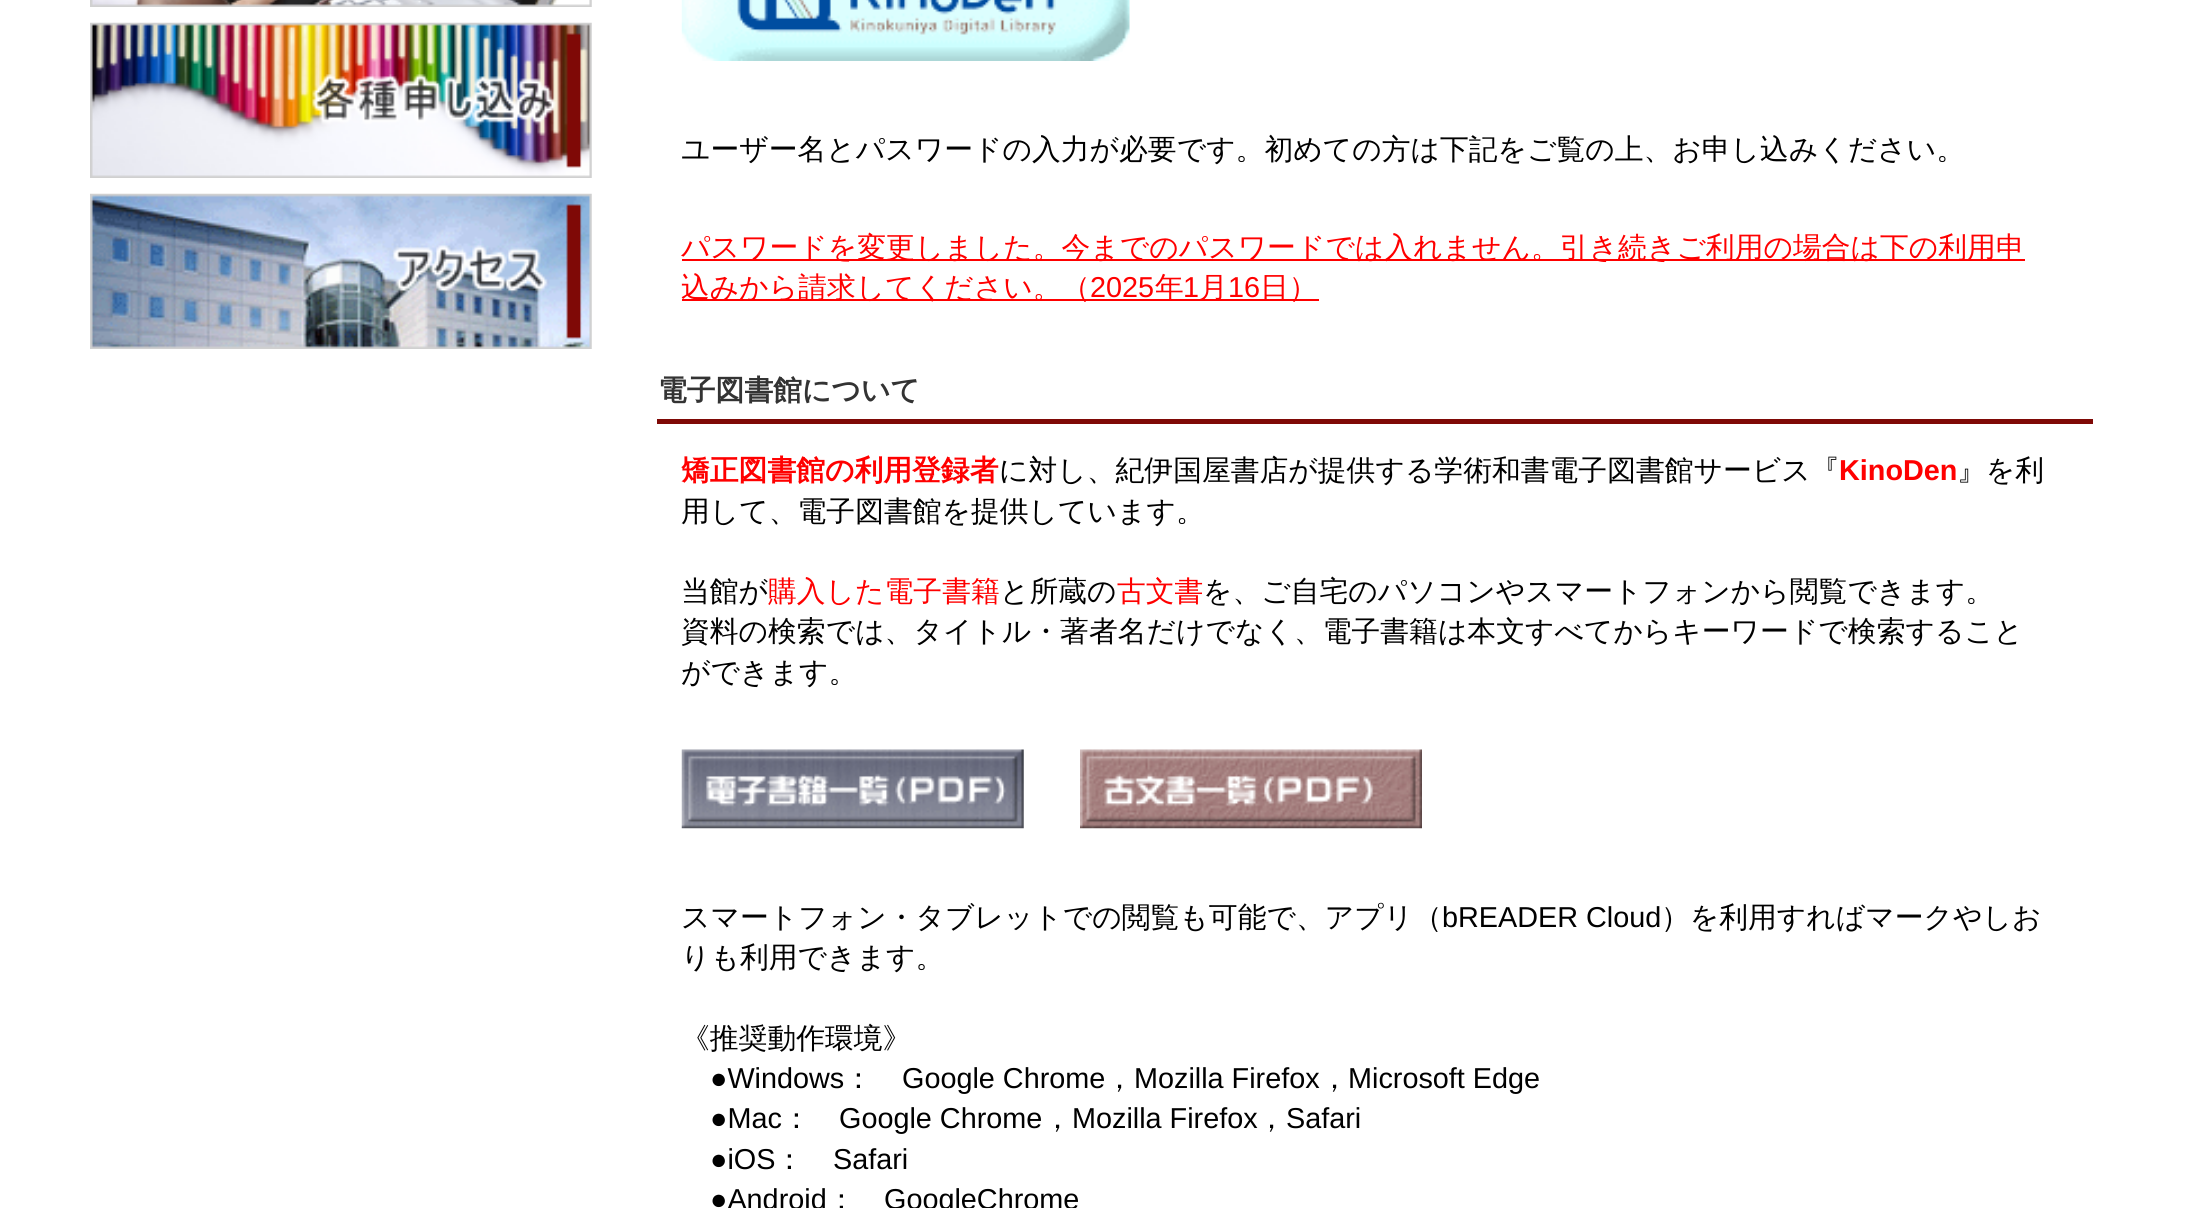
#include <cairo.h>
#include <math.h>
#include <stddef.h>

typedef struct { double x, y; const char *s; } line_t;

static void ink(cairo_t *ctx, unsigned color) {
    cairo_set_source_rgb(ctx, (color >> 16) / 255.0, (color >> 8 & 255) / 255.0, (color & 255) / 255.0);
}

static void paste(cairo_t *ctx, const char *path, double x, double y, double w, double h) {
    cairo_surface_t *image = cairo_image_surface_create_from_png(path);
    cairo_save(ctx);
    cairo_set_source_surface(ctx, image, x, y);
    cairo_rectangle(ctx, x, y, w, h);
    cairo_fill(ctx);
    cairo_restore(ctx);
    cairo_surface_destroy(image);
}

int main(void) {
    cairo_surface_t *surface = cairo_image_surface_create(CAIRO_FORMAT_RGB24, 2201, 1208);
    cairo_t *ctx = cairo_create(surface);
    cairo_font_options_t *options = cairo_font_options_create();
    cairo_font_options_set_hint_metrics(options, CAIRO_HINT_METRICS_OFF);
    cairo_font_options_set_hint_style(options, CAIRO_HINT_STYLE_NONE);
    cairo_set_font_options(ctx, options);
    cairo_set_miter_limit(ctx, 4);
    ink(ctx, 0xFFFFFF);
    cairo_paint(ctx);
    paste(ctx, "media/1.png", 90, 0, 502, 7);
    paste(ctx, "media/2.png", 90, 22, 502, 156);
    paste(ctx, "media/3.png", 90, 193, 502, 156);
    paste(ctx, "media/4.png", 681, 0, 449, 61);
    cairo_select_font_face(ctx, "WenQuanYi Zen Hei Medium", CAIRO_FONT_SLANT_NORMAL, CAIRO_FONT_WEIGHT_NORMAL);
    cairo_set_font_size(ctx, 28.8);
    ink(ctx, 0x000000);
    cairo_move_to(ctx, 681, 159);
    cairo_show_text(ctx, "ユーザー名とパスワードの入力が必要です。初めての方は下記をご覧の上、お申し込みください。");
    ink(ctx, 0xFF0000);
    cairo_rectangle(ctx, 682, 259, 1343, 2);
    cairo_fill(ctx);
    cairo_move_to(ctx, 681, 257);
    cairo_show_text(ctx, "パスワードを変更しました。今までのパスワードでは入れません。引き続きご利用の場合は下の利用申");
    cairo_rectangle(ctx, 682, 299, 637, 2);
    cairo_fill(ctx);
    cairo_move_to(ctx, 681, 297);
    cairo_show_text(ctx, "込みから請求してください。（");
    cairo_select_font_face(ctx, "Liberation Sans", CAIRO_FONT_SLANT_NORMAL, CAIRO_FONT_WEIGHT_NORMAL);
    cairo_move_to(ctx, 1090, 297);
    cairo_show_text(ctx, "2025");
    cairo_select_font_face(ctx, "WenQuanYi Zen Hei Medium", CAIRO_FONT_SLANT_NORMAL, CAIRO_FONT_WEIGHT_NORMAL);
    cairo_move_to(ctx, 1155, 297);
    cairo_show_text(ctx, "年");
    cairo_select_font_face(ctx, "Liberation Sans", CAIRO_FONT_SLANT_NORMAL, CAIRO_FONT_WEIGHT_NORMAL);
    cairo_move_to(ctx, 1183, 297);
    cairo_show_text(ctx, "1");
    cairo_select_font_face(ctx, "WenQuanYi Zen Hei Medium", CAIRO_FONT_SLANT_NORMAL, CAIRO_FONT_WEIGHT_NORMAL);
    cairo_move_to(ctx, 1199, 297);
    cairo_show_text(ctx, "月");
    cairo_select_font_face(ctx, "Liberation Sans", CAIRO_FONT_SLANT_NORMAL, CAIRO_FONT_WEIGHT_NORMAL);
    cairo_move_to(ctx, 1228, 297);
    cairo_show_text(ctx, "16");
    cairo_select_font_face(ctx, "WenQuanYi Zen Hei Medium", CAIRO_FONT_SLANT_NORMAL, CAIRO_FONT_WEIGHT_NORMAL);
    cairo_move_to(ctx, 1260, 297);
    cairo_show_text(ctx, "日）");
    ink(ctx, 0x7F0906);
    cairo_rectangle(ctx, 657, 419, 1436, 5);
    cairo_fill(ctx);
    cairo_select_font_face(ctx, "WenQuanYi Zen Hei", CAIRO_FONT_SLANT_NORMAL, CAIRO_FONT_WEIGHT_BOLD);
    ink(ctx, 0x333333);
    cairo_move_to(ctx, 658, 400);
    cairo_show_text(ctx, "電子図書館について");
    ink(ctx, 0xFF0000);
    cairo_move_to(ctx, 681, 480);
    cairo_show_text(ctx, "矯正図書館の利用登録者");
    cairo_select_font_face(ctx, "WenQuanYi Zen Hei Medium", CAIRO_FONT_SLANT_NORMAL, CAIRO_FONT_WEIGHT_NORMAL);
    ink(ctx, 0x000000);
    cairo_move_to(ctx, 999, 480);
    cairo_show_text(ctx, "に対し、紀伊国屋書店が提供する学術和書電子図書館サービス『");
    cairo_select_font_face(ctx, "Liberation Sans", CAIRO_FONT_SLANT_NORMAL, CAIRO_FONT_WEIGHT_BOLD);
    ink(ctx, 0xFF0000);
    cairo_move_to(ctx, 1839, 480);
    cairo_show_text(ctx, "KinoDen");
    cairo_select_font_face(ctx, "WenQuanYi Zen Hei Medium", CAIRO_FONT_SLANT_NORMAL, CAIRO_FONT_WEIGHT_NORMAL);
    ink(ctx, 0x000000);
    {
        static const line_t items[] = {
            {1957, 480, "』を利"},
            {681, 521, "用して、電子図書館を提供しています。"},
            {681, 601, "当館が"},
        };
        for (size_t i = 0; i < sizeof items / sizeof *items; i++) {
            cairo_move_to(ctx, items[i].x, items[i].y);
            cairo_show_text(ctx, items[i].s);
        }
    }
    ink(ctx, 0xFF0000);
    cairo_move_to(ctx, 768, 601);
    cairo_show_text(ctx, "購入した電子書籍");
    ink(ctx, 0x000000);
    cairo_move_to(ctx, 1000, 601);
    cairo_show_text(ctx, "と所蔵の");
    ink(ctx, 0xFF0000);
    cairo_move_to(ctx, 1117, 601);
    cairo_show_text(ctx, "古文書");
    ink(ctx, 0x000000);
    {
        static const line_t items[] = {
            {1203, 601, "を、ご自宅のパソコンやスマートフォンから閲覧できます。"},
            {681, 641, "資料の検索では、タイトル・著者名だけでなく、電子書籍は本文すべてからキーワードで検索すること"},
            {681, 682, "ができます。"},
        };
        for (size_t i = 0; i < sizeof items / sizeof *items; i++) {
            cairo_move_to(ctx, items[i].x, items[i].y);
            cairo_show_text(ctx, items[i].s);
        }
    }
    paste(ctx, "media/5.png", 681, 749, 343, 80);
    paste(ctx, "media/6.png", 1080, 749, 342, 80);
    cairo_move_to(ctx, 681, 927);
    cairo_show_text(ctx, "スマートフォン・タブレットでの閲覧も可能で、アプリ（");
    cairo_select_font_face(ctx, "Liberation Sans", CAIRO_FONT_SLANT_NORMAL, CAIRO_FONT_WEIGHT_NORMAL);
    cairo_move_to(ctx, 1442, 927);
    cairo_show_text(ctx, "bREADER Cloud");
    cairo_select_font_face(ctx, "WenQuanYi Zen Hei Medium", CAIRO_FONT_SLANT_NORMAL, CAIRO_FONT_WEIGHT_NORMAL);
    {
        static const line_t items[] = {
            {1661, 927, "）を利用すればマークやしお"},
            {681, 967, "りも利用できます。"},
            {681, 1048, "《推奨動作環境》"},
        };
        for (size_t i = 0; i < sizeof items / sizeof *items; i++) {
            cairo_move_to(ctx, items[i].x, items[i].y);
            cairo_show_text(ctx, items[i].s);
        }
    }
    cairo_select_font_face(ctx, "Liberation Sans", CAIRO_FONT_SLANT_NORMAL, CAIRO_FONT_WEIGHT_NORMAL);
    cairo_move_to(ctx, 710, 1088);
    cairo_show_text(ctx, "●Windows");
    cairo_select_font_face(ctx, "WenQuanYi Zen Hei Medium", CAIRO_FONT_SLANT_NORMAL, CAIRO_FONT_WEIGHT_NORMAL);
    cairo_move_to(ctx, 844, 1088);
    cairo_show_text(ctx, "：");
    cairo_select_font_face(ctx, "Liberation Sans", CAIRO_FONT_SLANT_NORMAL, CAIRO_FONT_WEIGHT_NORMAL);
    cairo_move_to(ctx, 902, 1088);
    cairo_show_text(ctx, "Google Chrome");
    cairo_select_font_face(ctx, "WenQuanYi Zen Hei Medium", CAIRO_FONT_SLANT_NORMAL, CAIRO_FONT_WEIGHT_NORMAL);
    cairo_move_to(ctx, 1105, 1088);
    cairo_show_text(ctx, "，");
    cairo_select_font_face(ctx, "Liberation Sans", CAIRO_FONT_SLANT_NORMAL, CAIRO_FONT_WEIGHT_NORMAL);
    cairo_move_to(ctx, 1134, 1088);
    cairo_show_text(ctx, "Mozilla Firefox");
    cairo_select_font_face(ctx, "WenQuanYi Zen Hei Medium", CAIRO_FONT_SLANT_NORMAL, CAIRO_FONT_WEIGHT_NORMAL);
    cairo_move_to(ctx, 1320, 1088);
    cairo_show_text(ctx, "，");
    cairo_select_font_face(ctx, "Liberation Sans", CAIRO_FONT_SLANT_NORMAL, CAIRO_FONT_WEIGHT_NORMAL);
    cairo_move_to(ctx, 1348, 1088);
    cairo_show_text(ctx, "Microsoft Edge");
    cairo_move_to(ctx, 710, 1128);
    cairo_show_text(ctx, "●Mac");
    cairo_select_font_face(ctx, "WenQuanYi Zen Hei Medium", CAIRO_FONT_SLANT_NORMAL, CAIRO_FONT_WEIGHT_NORMAL);
    cairo_move_to(ctx, 782, 1128);
    cairo_show_text(ctx, "：");
    cairo_select_font_face(ctx, "Liberation Sans", CAIRO_FONT_SLANT_NORMAL, CAIRO_FONT_WEIGHT_NORMAL);
    cairo_move_to(ctx, 839, 1128);
    cairo_show_text(ctx, "Google Chrome");
    cairo_select_font_face(ctx, "WenQuanYi Zen Hei Medium", CAIRO_FONT_SLANT_NORMAL, CAIRO_FONT_WEIGHT_NORMAL);
    cairo_move_to(ctx, 1043, 1128);
    cairo_show_text(ctx, "，");
    cairo_select_font_face(ctx, "Liberation Sans", CAIRO_FONT_SLANT_NORMAL, CAIRO_FONT_WEIGHT_NORMAL);
    cairo_move_to(ctx, 1072, 1128);
    cairo_show_text(ctx, "Mozilla Firefox");
    cairo_select_font_face(ctx, "WenQuanYi Zen Hei Medium", CAIRO_FONT_SLANT_NORMAL, CAIRO_FONT_WEIGHT_NORMAL);
    cairo_move_to(ctx, 1257, 1128);
    cairo_show_text(ctx, "，");
    cairo_select_font_face(ctx, "Liberation Sans", CAIRO_FONT_SLANT_NORMAL, CAIRO_FONT_WEIGHT_NORMAL);
    cairo_move_to(ctx, 1286, 1128);
    cairo_show_text(ctx, "Safari");
    cairo_move_to(ctx, 710, 1169);
    cairo_show_text(ctx, "●iOS");
    cairo_select_font_face(ctx, "WenQuanYi Zen Hei Medium", CAIRO_FONT_SLANT_NORMAL, CAIRO_FONT_WEIGHT_NORMAL);
    cairo_move_to(ctx, 775, 1169);
    cairo_show_text(ctx, "：");
    cairo_select_font_face(ctx, "Liberation Sans", CAIRO_FONT_SLANT_NORMAL, CAIRO_FONT_WEIGHT_NORMAL);
    cairo_move_to(ctx, 833, 1169);
    cairo_show_text(ctx, "Safari");
    cairo_move_to(ctx, 710, 1209);
    cairo_show_text(ctx, "●Android");
    cairo_select_font_face(ctx, "WenQuanYi Zen Hei Medium", CAIRO_FONT_SLANT_NORMAL, CAIRO_FONT_WEIGHT_NORMAL);
    cairo_move_to(ctx, 827, 1209);
    cairo_show_text(ctx, "：");
    cairo_select_font_face(ctx, "Liberation Sans", CAIRO_FONT_SLANT_NORMAL, CAIRO_FONT_WEIGHT_NORMAL);
    cairo_move_to(ctx, 884, 1209);
    cairo_show_text(ctx, "GoogleChrome");
    cairo_surface_write_to_png(surface, "image.png");
    cairo_font_options_destroy(options);
    cairo_destroy(ctx);
    cairo_surface_destroy(surface);
    return 0;
}
